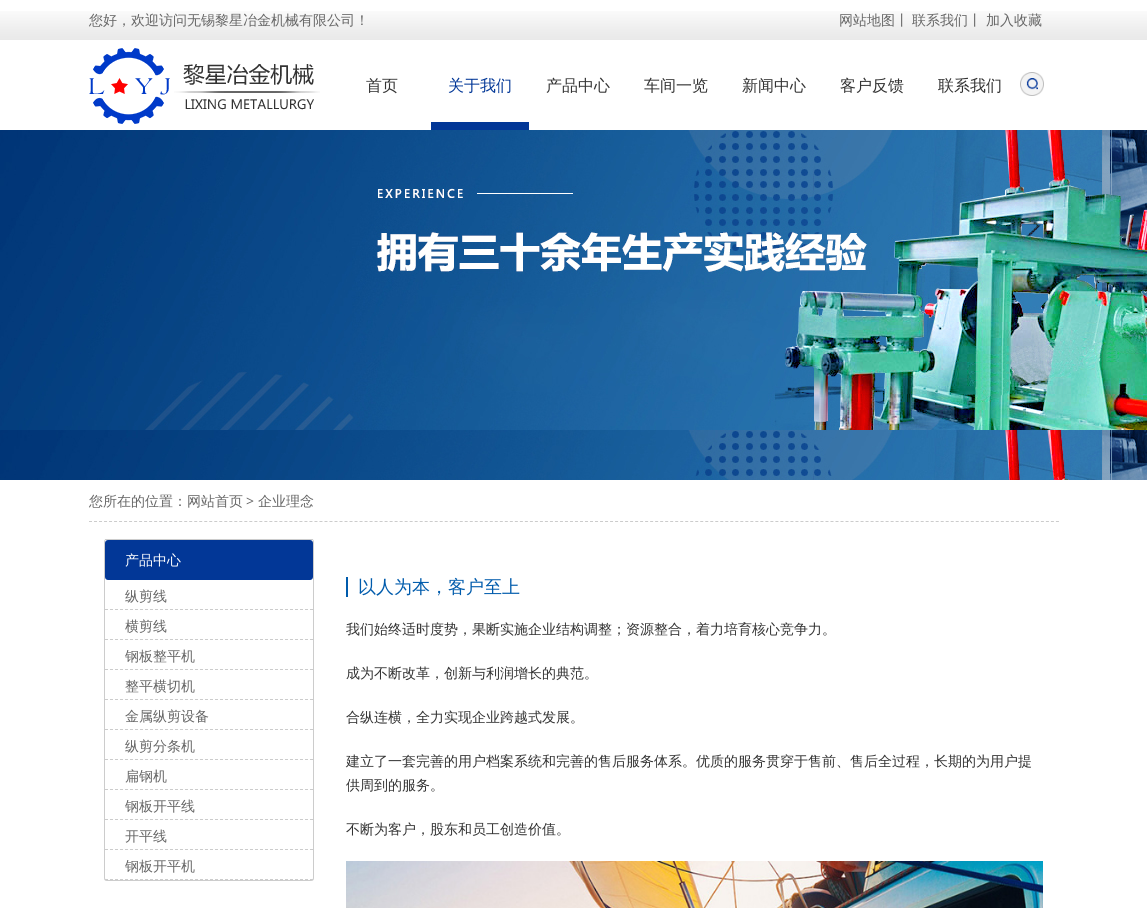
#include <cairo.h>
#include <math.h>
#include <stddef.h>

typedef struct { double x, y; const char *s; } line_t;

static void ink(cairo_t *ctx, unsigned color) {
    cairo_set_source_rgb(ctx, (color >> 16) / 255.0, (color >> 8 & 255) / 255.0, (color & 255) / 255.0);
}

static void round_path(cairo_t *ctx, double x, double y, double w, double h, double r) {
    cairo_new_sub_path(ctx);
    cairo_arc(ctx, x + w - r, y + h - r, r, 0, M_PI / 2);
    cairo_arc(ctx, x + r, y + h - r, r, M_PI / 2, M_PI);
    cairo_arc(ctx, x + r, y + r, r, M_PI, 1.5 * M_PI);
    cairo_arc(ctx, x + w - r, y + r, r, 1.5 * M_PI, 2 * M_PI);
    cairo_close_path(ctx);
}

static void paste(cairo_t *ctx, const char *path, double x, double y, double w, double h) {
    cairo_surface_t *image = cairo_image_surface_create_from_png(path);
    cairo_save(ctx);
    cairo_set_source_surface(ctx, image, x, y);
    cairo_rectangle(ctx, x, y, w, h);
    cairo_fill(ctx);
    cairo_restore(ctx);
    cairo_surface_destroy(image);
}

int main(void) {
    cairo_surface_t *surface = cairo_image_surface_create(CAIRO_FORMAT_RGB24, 1147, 908);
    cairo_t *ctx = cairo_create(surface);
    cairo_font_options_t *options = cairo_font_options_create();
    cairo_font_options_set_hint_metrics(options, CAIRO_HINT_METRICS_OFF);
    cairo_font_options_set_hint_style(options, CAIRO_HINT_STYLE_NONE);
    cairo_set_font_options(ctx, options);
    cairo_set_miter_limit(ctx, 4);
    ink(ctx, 0xFFFFFF);
    cairo_paint(ctx);
    paste(ctx, "media/1.png", 0, 11, 1147, 29);
    cairo_select_font_face(ctx, "WenQuanYi Zen Hei Medium", CAIRO_FONT_SLANT_NORMAL, CAIRO_FONT_WEIGHT_NORMAL);
    cairo_set_font_size(ctx, 14);
    ink(ctx, 0x666666);
    {
        static const line_t items[] = {
            {89, 25, "您好，欢迎访问无锡黎星冶金机械有限公司！"},
            {839, 25, "网站地图丨"},
            {912, 25, "联系我们丨"},
            {986, 25, "加入收藏"},
        };
        for (size_t i = 0; i < sizeof items / sizeof *items; i++) {
            cairo_move_to(ctx, items[i].x, items[i].y);
            cairo_show_text(ctx, items[i].s);
        }
    }
    paste(ctx, "media/2.png", 89, 48, 231, 76);
    cairo_set_font_size(ctx, 16);
    ink(ctx, 0x333333);
    cairo_move_to(ctx, 366, 91);
    cairo_show_text(ctx, "首页");
    ink(ctx, 0x023797);
    cairo_rectangle(ctx, 431, 122, 98, 8);
    cairo_fill(ctx);
    cairo_move_to(ctx, 448, 91);
    cairo_show_text(ctx, "关于我们");
    ink(ctx, 0x333333);
    {
        static const line_t items[] = {
            {546, 91, "产品中心"},
            {644, 91, "车间一览"},
            {742, 91, "新闻中心"},
            {840, 91, "客户反馈"},
            {938, 91, "联系我们"},
        };
        for (size_t i = 0; i < sizeof items / sizeof *items; i++) {
            cairo_move_to(ctx, items[i].x, items[i].y);
            cairo_show_text(ctx, items[i].s);
        }
    }
    paste(ctx, "media/3.png", 1020, 72, 24, 24);
    paste(ctx, "media/4.png", 0, 130, 1147, 350);
    cairo_new_path(ctx);
    cairo_move_to(ctx, 89, 521.5);
    cairo_line_to(ctx, 1059, 521.5);
    ink(ctx, 0xCCCCCC);
    cairo_set_line_width(ctx, 1);
    cairo_set_dash(ctx, (double[]){3, 2.01}, 2, 0);
    cairo_stroke(ctx);
    cairo_set_font_size(ctx, 14);
    ink(ctx, 0x666666);
    cairo_move_to(ctx, 89, 506);
    cairo_show_text(ctx, "您所在的位置：网站首页");
    cairo_select_font_face(ctx, "Open Sans", CAIRO_FONT_SLANT_NORMAL, CAIRO_FONT_WEIGHT_NORMAL);
    cairo_move_to(ctx, 246, 506);
    cairo_show_text(ctx, ">");
    cairo_select_font_face(ctx, "WenQuanYi Zen Hei Medium", CAIRO_FONT_SLANT_NORMAL, CAIRO_FONT_WEIGHT_NORMAL);
    cairo_move_to(ctx, 258, 506);
    cairo_show_text(ctx, "企业理念");
    ink(ctx, 0xCCCCCC);
    cairo_set_fill_rule(ctx, CAIRO_FILL_RULE_EVEN_ODD);
    cairo_new_path(ctx);
    cairo_move_to(ctx, 107, 539);
    cairo_line_to(ctx, 311, 539);
    cairo_curve_to(ctx, 313, 539, 314, 540, 314, 542);
    cairo_line_to(ctx, 314, 878);
    cairo_curve_to(ctx, 314, 880, 313, 881, 311, 881);
    cairo_line_to(ctx, 107, 881);
    cairo_curve_to(ctx, 105, 881, 104, 880, 104, 878);
    cairo_line_to(ctx, 104, 542);
    cairo_curve_to(ctx, 104, 540, 105, 539, 107, 539);
    cairo_close_path(ctx);
    cairo_move_to(ctx, 107, 539);
    cairo_line_to(ctx, 311, 539);
    cairo_curve_to(ctx, 312, 539, 313, 540, 313, 542);
    cairo_line_to(ctx, 313, 878);
    cairo_curve_to(ctx, 313, 879, 312, 880, 311, 880);
    cairo_line_to(ctx, 107, 880);
    cairo_curve_to(ctx, 106, 880, 105, 879, 105, 878);
    cairo_line_to(ctx, 105, 542);
    cairo_curve_to(ctx, 105, 540, 106, 539, 107, 539);
    cairo_close_path(ctx);
    cairo_fill(ctx);
    cairo_rectangle(ctx, 105, 539, 208, 1);
    cairo_fill(ctx);
    ink(ctx, 0x023797);
    round_path(ctx, 105, 540, 208, 40, 3);
    cairo_fill(ctx);
    ink(ctx, 0xFFFFFF);
    cairo_move_to(ctx, 125, 565);
    cairo_show_text(ctx, "产品中心");
    cairo_new_path(ctx);
    cairo_move_to(ctx, 105, 609.5);
    cairo_line_to(ctx, 313, 609.5);
    ink(ctx, 0xCCCCCC);
    cairo_set_dash(ctx, (double[]){3, 2}, 2, 0);
    cairo_stroke(ctx);
    ink(ctx, 0x666666);
    cairo_move_to(ctx, 125, 601);
    cairo_show_text(ctx, "纵剪线");
    cairo_new_path(ctx);
    cairo_move_to(ctx, 105, 639.5);
    cairo_line_to(ctx, 313, 639.5);
    ink(ctx, 0xCCCCCC);
    cairo_stroke(ctx);
    ink(ctx, 0x666666);
    cairo_move_to(ctx, 125, 631);
    cairo_show_text(ctx, "横剪线");
    cairo_new_path(ctx);
    cairo_move_to(ctx, 105, 669.5);
    cairo_line_to(ctx, 313, 669.5);
    ink(ctx, 0xCCCCCC);
    cairo_stroke(ctx);
    ink(ctx, 0x666666);
    cairo_move_to(ctx, 125, 661);
    cairo_show_text(ctx, "钢板整平机");
    cairo_new_path(ctx);
    cairo_move_to(ctx, 105, 699.5);
    cairo_line_to(ctx, 313, 699.5);
    ink(ctx, 0xCCCCCC);
    cairo_stroke(ctx);
    ink(ctx, 0x666666);
    cairo_move_to(ctx, 125, 691);
    cairo_show_text(ctx, "整平横切机");
    cairo_new_path(ctx);
    cairo_move_to(ctx, 105, 729.5);
    cairo_line_to(ctx, 313, 729.5);
    ink(ctx, 0xCCCCCC);
    cairo_stroke(ctx);
    ink(ctx, 0x666666);
    cairo_move_to(ctx, 125, 721);
    cairo_show_text(ctx, "金属纵剪设备");
    cairo_new_path(ctx);
    cairo_move_to(ctx, 105, 759.5);
    cairo_line_to(ctx, 313, 759.5);
    ink(ctx, 0xCCCCCC);
    cairo_stroke(ctx);
    ink(ctx, 0x666666);
    cairo_move_to(ctx, 125, 751);
    cairo_show_text(ctx, "纵剪分条机");
    cairo_new_path(ctx);
    cairo_move_to(ctx, 105, 789.5);
    cairo_line_to(ctx, 313, 789.5);
    ink(ctx, 0xCCCCCC);
    cairo_stroke(ctx);
    ink(ctx, 0x666666);
    cairo_move_to(ctx, 125, 781);
    cairo_show_text(ctx, "扁钢机");
    cairo_new_path(ctx);
    cairo_move_to(ctx, 105, 819.5);
    cairo_line_to(ctx, 313, 819.5);
    ink(ctx, 0xCCCCCC);
    cairo_stroke(ctx);
    ink(ctx, 0x666666);
    cairo_move_to(ctx, 125, 811);
    cairo_show_text(ctx, "钢板开平线");
    cairo_new_path(ctx);
    cairo_move_to(ctx, 105, 849.5);
    cairo_line_to(ctx, 313, 849.5);
    ink(ctx, 0xCCCCCC);
    cairo_stroke(ctx);
    ink(ctx, 0x666666);
    cairo_move_to(ctx, 125, 841);
    cairo_show_text(ctx, "开平线");
    cairo_new_path(ctx);
    cairo_move_to(ctx, 105, 879.5);
    cairo_line_to(ctx, 313, 879.5);
    ink(ctx, 0xCCCCCC);
    cairo_stroke(ctx);
    ink(ctx, 0x666666);
    cairo_move_to(ctx, 125, 871);
    cairo_show_text(ctx, "钢板开平机");
    ink(ctx, 0x005BAC);
    cairo_rectangle(ctx, 346, 577, 2, 20);
    cairo_fill(ctx);
    cairo_set_font_size(ctx, 18);
    cairo_move_to(ctx, 358, 593);
    cairo_show_text(ctx, "以人为本，客户至上");
    cairo_set_font_size(ctx, 14);
    ink(ctx, 0x333333);
    {
        static const line_t items[] = {
            {346, 634, "我们始终适时度势，果断实施企业结构调整；资源整合，着力培育核心竞争力。"},
            {346, 678, "成为不断改革，创新与利润增长的典范。"},
            {346, 722, "合纵连横，全力实现企业跨越式发展。"},
            {346, 766, "建立了一套完善的用户档案系统和完善的售后服务体系。优质的服务贯穿于售前、售后全过程，长期的为用户提"},
            {346, 790, "供周到的服务。"},
            {346, 834, "不断为客户，股东和员工创造价值。"},
        };
        for (size_t i = 0; i < sizeof items / sizeof *items; i++) {
            cairo_move_to(ctx, items[i].x, items[i].y);
            cairo_show_text(ctx, items[i].s);
        }
    }
    paste(ctx, "media/5.png", 346, 861, 697, 47);
    cairo_surface_write_to_png(surface, "image.png");
    cairo_font_options_destroy(options);
    cairo_destroy(ctx);
    cairo_surface_destroy(surface);
    return 0;
}
